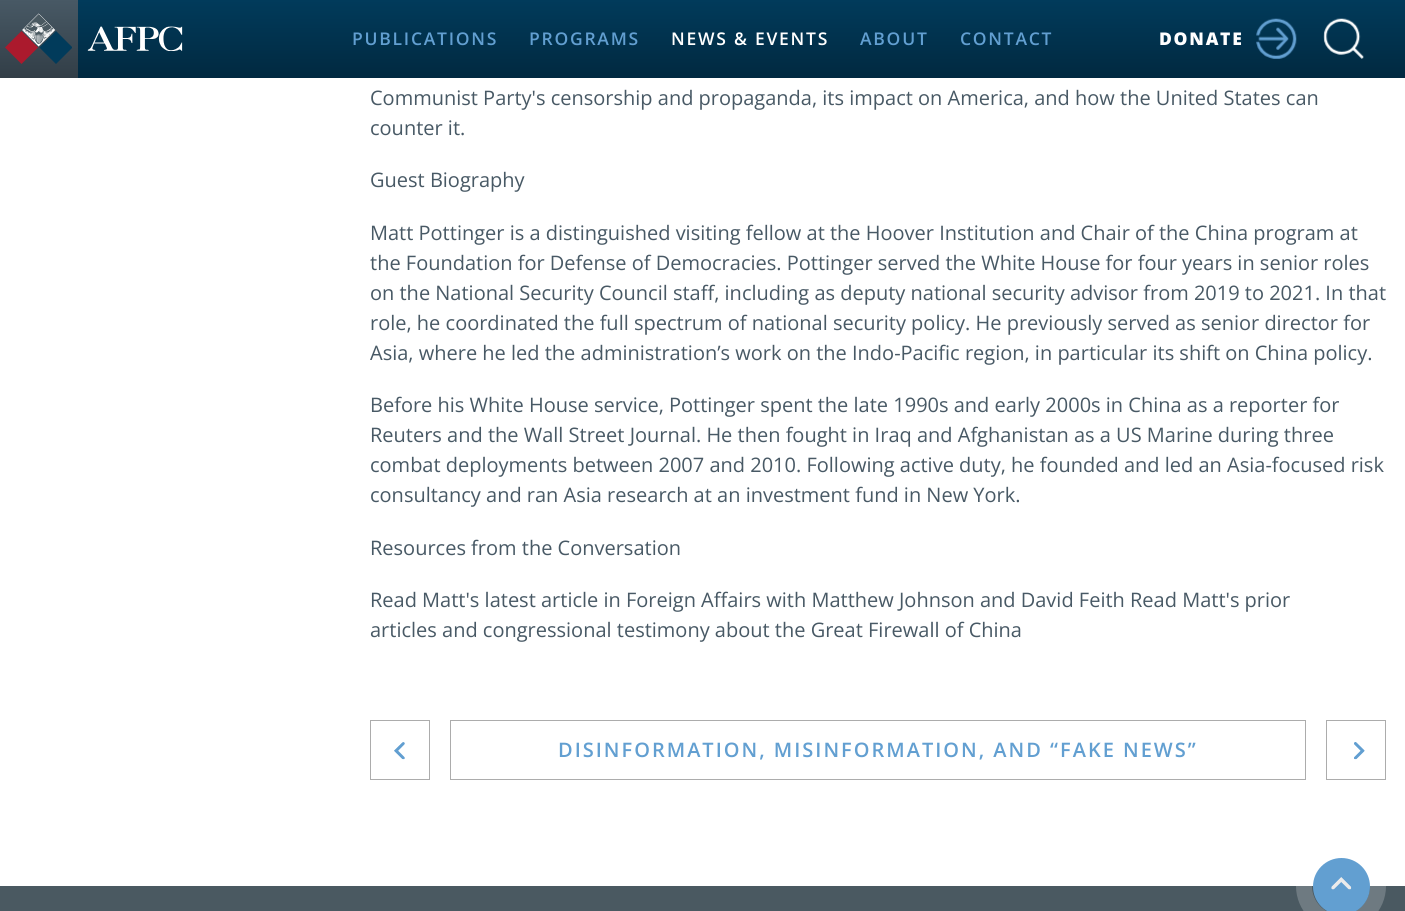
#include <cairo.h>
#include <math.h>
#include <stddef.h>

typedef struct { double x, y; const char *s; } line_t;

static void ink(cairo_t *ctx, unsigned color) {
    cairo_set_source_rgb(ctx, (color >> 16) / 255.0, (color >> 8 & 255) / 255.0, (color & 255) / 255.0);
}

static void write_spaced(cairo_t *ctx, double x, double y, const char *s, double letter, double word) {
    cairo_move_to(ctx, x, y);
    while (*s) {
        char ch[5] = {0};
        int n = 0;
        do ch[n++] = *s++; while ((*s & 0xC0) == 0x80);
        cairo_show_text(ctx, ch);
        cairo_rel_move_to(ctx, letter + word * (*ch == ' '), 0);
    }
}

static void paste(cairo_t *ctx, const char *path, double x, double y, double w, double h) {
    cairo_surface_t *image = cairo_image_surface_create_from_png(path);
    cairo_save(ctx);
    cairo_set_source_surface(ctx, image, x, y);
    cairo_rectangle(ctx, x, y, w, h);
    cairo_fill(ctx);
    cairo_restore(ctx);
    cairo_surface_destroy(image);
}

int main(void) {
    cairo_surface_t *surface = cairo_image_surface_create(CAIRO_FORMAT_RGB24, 1405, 911);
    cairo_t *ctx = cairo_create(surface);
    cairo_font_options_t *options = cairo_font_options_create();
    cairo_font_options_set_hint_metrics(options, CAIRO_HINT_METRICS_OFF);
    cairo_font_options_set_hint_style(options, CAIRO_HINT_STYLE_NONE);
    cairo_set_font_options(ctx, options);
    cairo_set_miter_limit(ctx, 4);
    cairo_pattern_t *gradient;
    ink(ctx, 0xFFFFFF);
    cairo_paint(ctx);
    gradient = cairo_pattern_create_linear(703, 0, 703, 78);
    cairo_pattern_add_color_stop_rgba(gradient, 0, 0.004, 0.231, 0.357, 1);
    cairo_pattern_add_color_stop_rgba(gradient, 1, 0.004, 0.161, 0.251, 1);
    cairo_set_source(ctx, gradient);
    cairo_pattern_destroy(gradient);
    cairo_rectangle(ctx, 78, 0, 1327, 78);
    cairo_fill(ctx);
    gradient = cairo_pattern_create_linear(39, 0, 39, 78);
    cairo_pattern_add_color_stop_rgba(gradient, 0, 0.282, 0.349, 0.396, 1);
    cairo_pattern_add_color_stop_rgba(gradient, 1, 0.196, 0.243, 0.278, 1);
    cairo_set_source(ctx, gradient);
    cairo_pattern_destroy(gradient);
    cairo_rectangle(ctx, 0, 0, 78, 78);
    cairo_fill(ctx);
    paste(ctx, "media/1.png", 5, 13, 67, 51);
    paste(ctx, "media/2.png", 87, 26, 96, 25);
    cairo_select_font_face(ctx, "Open Sans SemiBold", CAIRO_FONT_SLANT_NORMAL, CAIRO_FONT_WEIGHT_NORMAL);
    cairo_set_font_size(ctx, 17.5);
    ink(ctx, 0x629FD1);
    write_spaced(ctx, 352, 45, "PUBLICATIONS", 1.75, 0);
    write_spaced(ctx, 529, 45, "PROGRAMS", 1.75, 0);
    ink(ctx, 0xFFFFFF);
    write_spaced(ctx, 671, 45, "NEWS & EVENTS", 1.75, 0);
    ink(ctx, 0x629FD1);
    write_spaced(ctx, 860, 45, "ABOUT", 1.75, 0);
    write_spaced(ctx, 960, 45, "CONTACT", 1.75, 0);
    cairo_select_font_face(ctx, "Open Sans ExtraBold", CAIRO_FONT_SLANT_NORMAL, CAIRO_FONT_WEIGHT_NORMAL);
    ink(ctx, 0xFFFFFF);
    write_spaced(ctx, 1159, 45, "DONATE", 1.75, 0);
    paste(ctx, "media/3.png", 1256, 18, 41, 41);
    paste(ctx, "media/4.png", 1323, 18, 41, 41);
    cairo_select_font_face(ctx, "Open Sans", CAIRO_FONT_SLANT_NORMAL, CAIRO_FONT_WEIGHT_NORMAL);
    cairo_set_font_size(ctx, 20);
    ink(ctx, 0x485965);
    {
        static const line_t items[] = {
            {370, 105, "Communist Party's censorship and propaganda, its impact on America, and how the United States can"},
            {370, 135, "counter it."},
            {370, 187, "Guest Biography"},
            {370, 240, "Matt Pottinger is a distinguished visiting fellow at the Hoover Institution and Chair of the China program at"},
            {370, 270, "the Foundation for Defense of Democracies. Pottinger served the White House for four years in senior roles"},
            {370, 300, "on the National Security Council staff, including as deputy national security advisor from 2019 to 2021. In that"},
            {370, 330, "role, he coordinated the full spectrum of national security policy. He previously served as senior director for"},
            {370, 360, "Asia, where he led the administration’s work on the Indo-Pacific region, in particular its shift on China policy."},
            {370, 412, "Before his White House service, Pottinger spent the late 1990s and early 2000s in China as a reporter for"},
            {370, 442, "Reuters and the Wall Street Journal. He then fought in Iraq and Afghanistan as a US Marine during three"},
            {370, 472, "combat deployments between 2007 and 2010. Following active duty, he founded and led an Asia-focused risk"},
            {370, 502, "consultancy and ran Asia research at an investment fund in New York."},
            {370, 555, "Resources from the Conversation"},
            {370, 607, "Read Matt's latest article in Foreign Affairs with Matthew Johnson and David Feith Read Matt's prior"},
            {370, 637, "articles and congressional testimony about the Great Firewall of China"},
        };
        for (size_t i = 0; i < sizeof items / sizeof *items; i++) {
            cairo_move_to(ctx, items[i].x, items[i].y);
            cairo_show_text(ctx, items[i].s);
        }
    }
    cairo_rectangle(ctx, 370.5, 720.5, 59, 59);
    ink(ctx, 0xACACAC);
    cairo_set_line_width(ctx, 1);
    cairo_stroke(ctx);
    paste(ctx, "media/5.png", 394, 742, 11, 18);
    cairo_rectangle(ctx, 450.5, 720.5, 855, 59);
    cairo_stroke(ctx);
    cairo_select_font_face(ctx, "Open Sans SemiBold", CAIRO_FONT_SLANT_NORMAL, CAIRO_FONT_WEIGHT_NORMAL);
    ink(ctx, 0x629FD1);
    write_spaced(ctx, 558, 757, "DISINFORMATION, MISINFORMATION, AND “FAKE NEWS”", 2, 0);
    cairo_rectangle(ctx, 1326.5, 720.5, 59, 59);
    ink(ctx, 0xACACAC);
    cairo_stroke(ctx);
    paste(ctx, "media/6.png", 1354, 742, 11, 18);
    ink(ctx, 0x4A5961);
    cairo_rectangle(ctx, 0, 886, 1405, 25);
    cairo_fill(ctx);
    cairo_arc(ctx, 1341, 886, 37, 0, 2 * M_PI);
    cairo_set_source_rgba(ctx, 1, 1, 1, 0.2);
    cairo_set_line_width(ctx, 16);
    cairo_stroke(ctx);
    ink(ctx, 0x629FD1);
    cairo_arc(ctx, 1341.5, 886.5, 28.5, 0, 2 * M_PI);
    cairo_fill(ctx);
    paste(ctx, "media/7.png", 1331, 877, 21, 13);
    cairo_surface_write_to_png(surface, "image.png");
    cairo_font_options_destroy(options);
    cairo_destroy(ctx);
    cairo_surface_destroy(surface);
    return 0;
}
